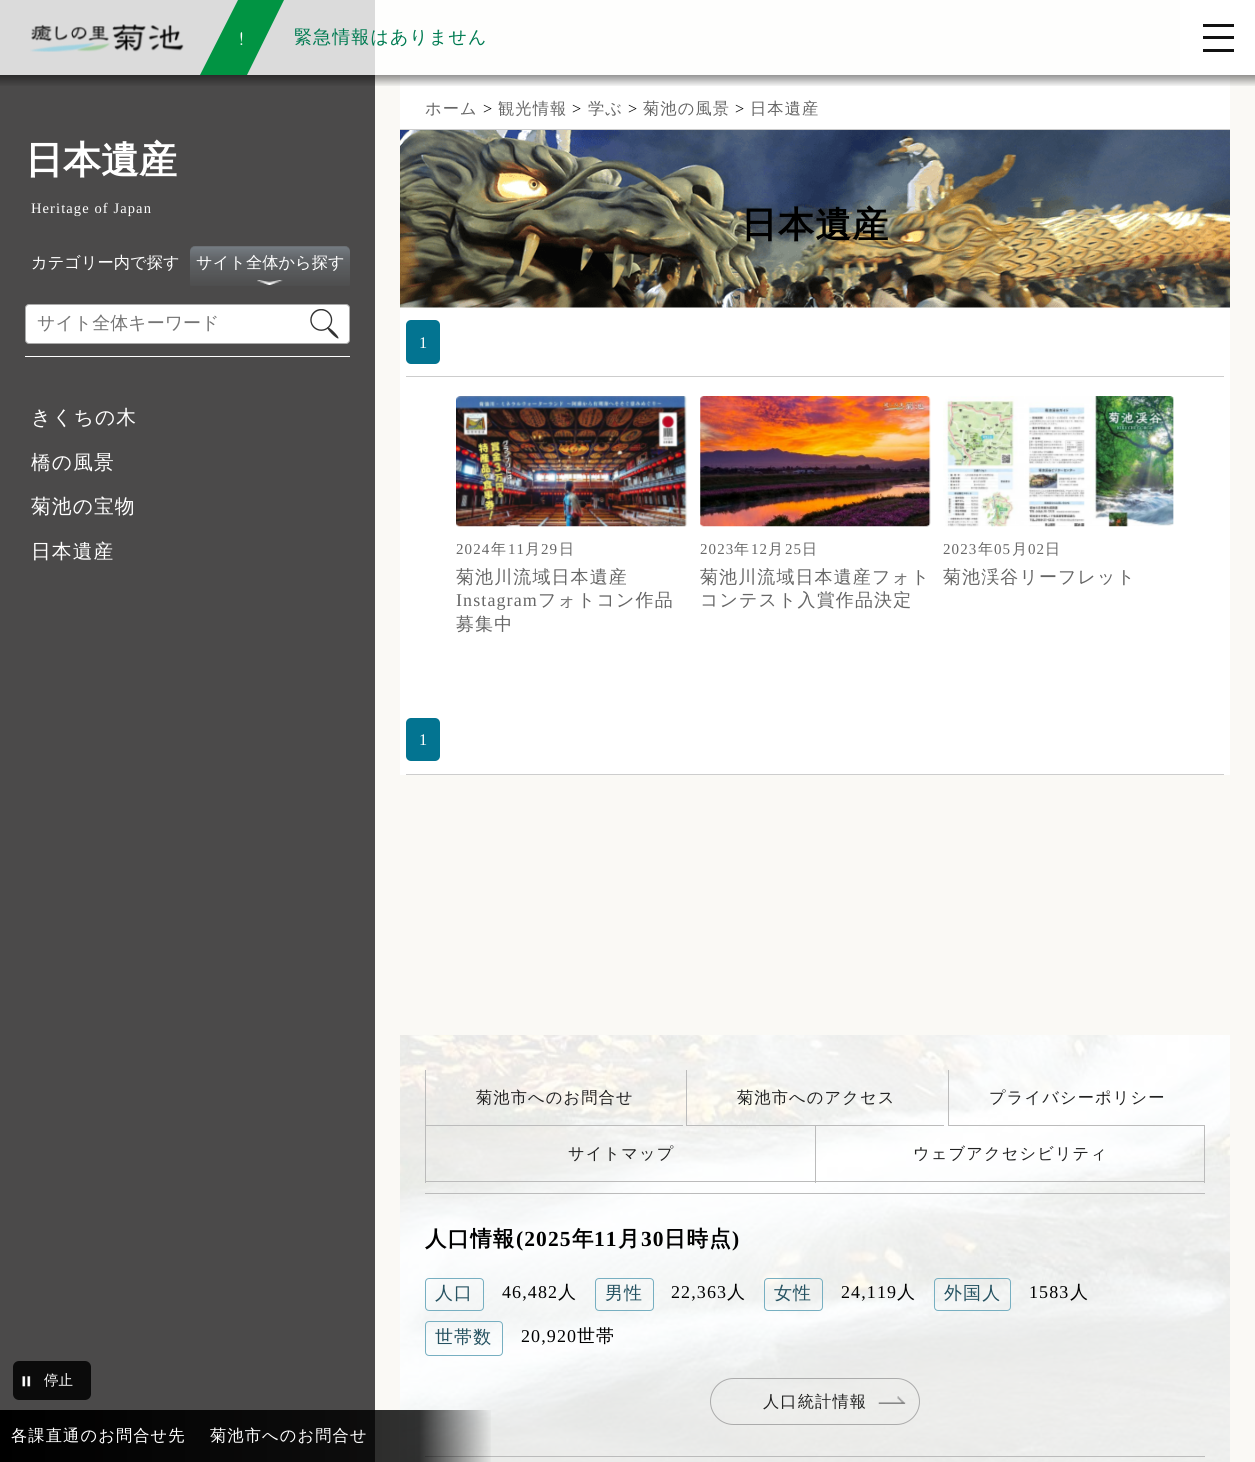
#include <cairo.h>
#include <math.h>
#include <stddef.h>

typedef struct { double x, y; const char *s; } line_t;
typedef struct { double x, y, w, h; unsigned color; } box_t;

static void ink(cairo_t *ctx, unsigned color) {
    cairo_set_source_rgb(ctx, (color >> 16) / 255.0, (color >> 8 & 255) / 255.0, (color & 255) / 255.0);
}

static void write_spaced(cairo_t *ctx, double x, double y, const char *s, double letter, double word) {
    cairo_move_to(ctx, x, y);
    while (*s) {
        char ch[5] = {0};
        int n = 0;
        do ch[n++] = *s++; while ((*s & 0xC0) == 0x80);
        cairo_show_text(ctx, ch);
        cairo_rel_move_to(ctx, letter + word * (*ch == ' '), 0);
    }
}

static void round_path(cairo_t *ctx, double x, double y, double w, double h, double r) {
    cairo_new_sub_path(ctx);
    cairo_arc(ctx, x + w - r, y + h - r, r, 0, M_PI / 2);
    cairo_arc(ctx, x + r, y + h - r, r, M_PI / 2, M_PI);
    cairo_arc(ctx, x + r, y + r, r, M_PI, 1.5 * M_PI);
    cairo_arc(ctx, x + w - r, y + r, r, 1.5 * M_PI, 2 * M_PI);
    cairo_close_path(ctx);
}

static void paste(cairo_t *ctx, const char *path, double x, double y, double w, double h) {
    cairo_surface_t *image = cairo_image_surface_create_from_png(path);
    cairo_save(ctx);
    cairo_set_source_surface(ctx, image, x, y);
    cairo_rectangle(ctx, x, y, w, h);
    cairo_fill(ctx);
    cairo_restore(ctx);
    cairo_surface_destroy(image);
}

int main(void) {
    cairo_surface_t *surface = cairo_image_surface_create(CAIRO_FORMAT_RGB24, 1255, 1462);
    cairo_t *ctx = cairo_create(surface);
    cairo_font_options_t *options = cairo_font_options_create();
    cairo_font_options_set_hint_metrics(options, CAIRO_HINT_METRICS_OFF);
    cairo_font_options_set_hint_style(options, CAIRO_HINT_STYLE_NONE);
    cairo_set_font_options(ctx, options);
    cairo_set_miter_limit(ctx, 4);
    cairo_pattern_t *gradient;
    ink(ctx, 0xFAF9F5);
    cairo_paint(ctx);
    {
        static const box_t items[] = {
            {375, 0, 805, 75, 0xFEFEFD},
            {1180, 0, 75, 75, 0xFFFFFF},
            {1203, 36, 31, 3, 0x111111},
            {1203, 24, 31, 3, 0x111111},
            {1203, 49, 31, 3, 0x111111},
            {0, 75, 375, 1387, 0x4B4A4A},
            {400, 75, 830, 700, 0xFFFFFF},
        };
        for (size_t i = 0; i < sizeof items / sizeof *items; i++) {
            ink(ctx, items[i].color);
            cairo_rectangle(ctx, items[i].x, items[i].y, items[i].w, items[i].h);
            cairo_fill(ctx);
        }
    }
    paste(ctx, "media/1.png", 0, 75, 1255, 11);
    ink(ctx, 0xDBDBDB);
    cairo_rectangle(ctx, 0, 0, 375, 75);
    cairo_fill(ctx);
    paste(ctx, "media/2.png", 30, 24, 154, 28);
    ink(ctx, 0x019443);
    cairo_new_path(ctx);
    cairo_move_to(ctx, 247, 75);
    cairo_line_to(ctx, 200, 75);
    cairo_line_to(ctx, 238, 0);
    cairo_line_to(ctx, 284, 0);
    cairo_close_path(ctx);
    cairo_fill(ctx);
    ink(ctx, 0xFFFFFF);
    cairo_new_path(ctx);
    cairo_move_to(ctx, 241.5, 42.5);
    cairo_curve_to(ctx, 241.5, 41, 243, 32.5, 241.5, 32);
    cairo_line_to(ctx, 241, 32.5);
    cairo_curve_to(ctx, 240, 33.5, 241, 40.5, 241.5, 42.5);
    cairo_close_path(ctx);
    cairo_fill(ctx);
    cairo_arc(ctx, 241.4, 44.1, 0.9, 0, 2 * M_PI);
    cairo_fill(ctx);
    cairo_select_font_face(ctx, "WenQuanYi Zen Hei Medium", CAIRO_FONT_SLANT_NORMAL, CAIRO_FONT_WEIGHT_NORMAL);
    cairo_set_font_size(ctx, 18);
    ink(ctx, 0x007B52);
    write_spaced(ctx, 294, 43, "緊急情報はありません", 1.1, 0);
    cairo_select_font_face(ctx, "WenQuanYi Zen Hei", CAIRO_FONT_SLANT_NORMAL, CAIRO_FONT_WEIGHT_BOLD);
    cairo_set_font_size(ctx, 38);
    ink(ctx, 0xFFFFFF);
    cairo_move_to(ctx, 25, 173);
    cairo_show_text(ctx, "日本遺産");
    cairo_select_font_face(ctx, "Liberation Serif", CAIRO_FONT_SLANT_NORMAL, CAIRO_FONT_WEIGHT_NORMAL);
    cairo_set_font_size(ctx, 14.5);
    write_spaced(ctx, 31, 213, "Heritage of Japan", 1.1, 0);
    cairo_select_font_face(ctx, "WenQuanYi Zen Hei Medium", CAIRO_FONT_SLANT_NORMAL, CAIRO_FONT_WEIGHT_NORMAL);
    cairo_set_font_size(ctx, 16.25);
    cairo_move_to(ctx, 31, 268);
    cairo_show_text(ctx, "カテゴリー内で探す");
    paste(ctx, "media/3.png", 190, 246, 160, 40);
    paste(ctx, "media/4.png", 257, 280, 26, 5);
    cairo_move_to(ctx, 196, 268);
    cairo_show_text(ctx, "サイト全体から探す");
    cairo_rectangle(ctx, 25, 356, 325, 1);
    cairo_fill(ctx);
    round_path(ctx, 25.5, 304.5, 324, 39, 3.5);
    cairo_fill_preserve(ctx);
    ink(ctx, 0xAAAAAA);
    cairo_set_line_width(ctx, 1);
    cairo_stroke(ctx);
    cairo_set_font_size(ctx, 18);
    ink(ctx, 0x757575);
    cairo_move_to(ctx, 37, 329);
    cairo_show_text(ctx, "サイト全体キーワード");
    paste(ctx, "media/5.png", 310, 309, 29, 30);
    cairo_set_font_size(ctx, 19.75);
    ink(ctx, 0xFFFFFF);
    {
        static const line_t items[] = {
            {31, 424, "きくちの木"},
            {31, 469, "橋の風景"},
            {31, 513, "菊池の宝物"},
            {31, 558, "日本遺産"},
        };
        for (size_t i = 0; i < sizeof items / sizeof *items; i++) {
            write_spaced(ctx, items[i].x, items[i].y, items[i].s, 1.1, 0);
        }
    }
    ink(ctx, 0x0B0B0B);
    round_path(ctx, 13, 1361, 78, 39, 6);
    cairo_fill(ctx);
    paste(ctx, "media/6.png", 22, 1376, 9, 11);
    cairo_set_font_size(ctx, 14.5);
    ink(ctx, 0xFFFFFF);
    cairo_move_to(ctx, 44, 1385);
    cairo_show_text(ctx, "停止");
    ink(ctx, 0xCCCCCC);
    cairo_rectangle(ctx, 400, 129, 830, 1);
    cairo_fill(ctx);
    cairo_set_font_size(ctx, 16.25);
    ink(ctx, 0x666666);
    write_spaced(ctx, 425, 114, "ホーム", 1.1, 0);
    cairo_select_font_face(ctx, "Liberation Serif", CAIRO_FONT_SLANT_NORMAL, CAIRO_FONT_WEIGHT_NORMAL);
    ink(ctx, 0x000000);
    write_spaced(ctx, 483, 114, ">", 1.1, 0);
    cairo_select_font_face(ctx, "WenQuanYi Zen Hei Medium", CAIRO_FONT_SLANT_NORMAL, CAIRO_FONT_WEIGHT_NORMAL);
    ink(ctx, 0x666666);
    write_spaced(ctx, 498, 114, "観光情報", 1.1, 0);
    cairo_select_font_face(ctx, "Liberation Serif", CAIRO_FONT_SLANT_NORMAL, CAIRO_FONT_WEIGHT_NORMAL);
    ink(ctx, 0x000000);
    write_spaced(ctx, 572, 114, ">", 1.1, 0);
    cairo_select_font_face(ctx, "WenQuanYi Zen Hei Medium", CAIRO_FONT_SLANT_NORMAL, CAIRO_FONT_WEIGHT_NORMAL);
    ink(ctx, 0x666666);
    write_spaced(ctx, 588, 114, "学ぶ", 1.1, 0);
    cairo_select_font_face(ctx, "Liberation Serif", CAIRO_FONT_SLANT_NORMAL, CAIRO_FONT_WEIGHT_NORMAL);
    ink(ctx, 0x000000);
    write_spaced(ctx, 628, 114, ">", 1.1, 0);
    cairo_select_font_face(ctx, "WenQuanYi Zen Hei Medium", CAIRO_FONT_SLANT_NORMAL, CAIRO_FONT_WEIGHT_NORMAL);
    ink(ctx, 0x666666);
    write_spaced(ctx, 643, 114, "菊池の風景", 1.1, 0);
    cairo_select_font_face(ctx, "Liberation Serif", CAIRO_FONT_SLANT_NORMAL, CAIRO_FONT_WEIGHT_NORMAL);
    ink(ctx, 0x000000);
    write_spaced(ctx, 735, 114, ">", 1.1, 0);
    cairo_select_font_face(ctx, "WenQuanYi Zen Hei Medium", CAIRO_FONT_SLANT_NORMAL, CAIRO_FONT_WEIGHT_NORMAL);
    ink(ctx, 0x666666);
    write_spaced(ctx, 750, 114, "日本遺産", 1.1, 0);
    paste(ctx, "media/7.png", 400, 130, 830, 178);
    cairo_select_font_face(ctx, "WenQuanYi Zen Hei", CAIRO_FONT_SLANT_NORMAL, CAIRO_FONT_WEIGHT_BOLD);
    cairo_set_font_size(ctx, 36);
    ink(ctx, 0x000000);
    write_spaced(ctx, 741, 237, "日本遺産", 1.1, 0);
    ink(ctx, 0xCDCDCD);
    cairo_rectangle(ctx, 406, 376, 818, 1);
    cairo_fill(ctx);
    ink(ctx, 0x037491);
    round_path(ctx, 406, 320, 34, 44, 5);
    cairo_fill(ctx);
    cairo_select_font_face(ctx, "Liberation Serif", CAIRO_FONT_SLANT_NORMAL, CAIRO_FONT_WEIGHT_NORMAL);
    cairo_set_font_size(ctx, 16.25);
    ink(ctx, 0xFFFFFF);
    write_spaced(ctx, 419, 348, "1", 1.1, 0);
    paste(ctx, "media/8.png", 456, 396, 232, 131);
    cairo_set_font_size(ctx, 15);
    ink(ctx, 0x666666);
    write_spaced(ctx, 456, 554, "2024", 1.1, 0);
    cairo_select_font_face(ctx, "WenQuanYi Zen Hei Medium", CAIRO_FONT_SLANT_NORMAL, CAIRO_FONT_WEIGHT_NORMAL);
    write_spaced(ctx, 491, 554, "年", 1.1, 0);
    cairo_select_font_face(ctx, "Liberation Serif", CAIRO_FONT_SLANT_NORMAL, CAIRO_FONT_WEIGHT_NORMAL);
    write_spaced(ctx, 508, 554, "11", 1.1, 0);
    cairo_select_font_face(ctx, "WenQuanYi Zen Hei Medium", CAIRO_FONT_SLANT_NORMAL, CAIRO_FONT_WEIGHT_NORMAL);
    write_spaced(ctx, 525, 554, "月", 1.1, 0);
    cairo_select_font_face(ctx, "Liberation Serif", CAIRO_FONT_SLANT_NORMAL, CAIRO_FONT_WEIGHT_NORMAL);
    write_spaced(ctx, 541, 554, "29", 1.1, 0);
    cairo_select_font_face(ctx, "WenQuanYi Zen Hei Medium", CAIRO_FONT_SLANT_NORMAL, CAIRO_FONT_WEIGHT_NORMAL);
    write_spaced(ctx, 559, 554, "日", 1.1, 0);
    cairo_set_font_size(ctx, 18);
    write_spaced(ctx, 456, 583, "菊池川流域日本遺産", 1.1, 0);
    cairo_select_font_face(ctx, "Liberation Serif", CAIRO_FONT_SLANT_NORMAL, CAIRO_FONT_WEIGHT_NORMAL);
    write_spaced(ctx, 456, 606, "Instagram", 1.1, 0);
    cairo_select_font_face(ctx, "WenQuanYi Zen Hei Medium", CAIRO_FONT_SLANT_NORMAL, CAIRO_FONT_WEIGHT_NORMAL);
    write_spaced(ctx, 538, 606, "フォトコン作品", 1.1, 0);
    write_spaced(ctx, 456, 630, "募集中", 1.1, 0);
    paste(ctx, "media/9.png", 700, 396, 231, 131);
    cairo_select_font_face(ctx, "Liberation Serif", CAIRO_FONT_SLANT_NORMAL, CAIRO_FONT_WEIGHT_NORMAL);
    cairo_set_font_size(ctx, 15);
    write_spaced(ctx, 700, 554, "2023", 1.1, 0);
    cairo_select_font_face(ctx, "WenQuanYi Zen Hei Medium", CAIRO_FONT_SLANT_NORMAL, CAIRO_FONT_WEIGHT_NORMAL);
    write_spaced(ctx, 734, 554, "年", 1.1, 0);
    cairo_select_font_face(ctx, "Liberation Serif", CAIRO_FONT_SLANT_NORMAL, CAIRO_FONT_WEIGHT_NORMAL);
    write_spaced(ctx, 751, 554, "12", 1.1, 0);
    cairo_select_font_face(ctx, "WenQuanYi Zen Hei Medium", CAIRO_FONT_SLANT_NORMAL, CAIRO_FONT_WEIGHT_NORMAL);
    write_spaced(ctx, 768, 554, "月", 1.1, 0);
    cairo_select_font_face(ctx, "Liberation Serif", CAIRO_FONT_SLANT_NORMAL, CAIRO_FONT_WEIGHT_NORMAL);
    write_spaced(ctx, 785, 554, "25", 1.1, 0);
    cairo_select_font_face(ctx, "WenQuanYi Zen Hei Medium", CAIRO_FONT_SLANT_NORMAL, CAIRO_FONT_WEIGHT_NORMAL);
    write_spaced(ctx, 802, 554, "日", 1.1, 0);
    cairo_set_font_size(ctx, 18);
    write_spaced(ctx, 700, 583, "菊池川流域日本遺産フォト", 1.1, 0);
    write_spaced(ctx, 700, 606, "コンテスト入賞作品決定", 1.1, 0);
    paste(ctx, "media/10.png", 943, 396, 231, 131);
    cairo_select_font_face(ctx, "Liberation Serif", CAIRO_FONT_SLANT_NORMAL, CAIRO_FONT_WEIGHT_NORMAL);
    cairo_set_font_size(ctx, 15);
    write_spaced(ctx, 943, 554, "2023", 1.1, 0);
    cairo_select_font_face(ctx, "WenQuanYi Zen Hei Medium", CAIRO_FONT_SLANT_NORMAL, CAIRO_FONT_WEIGHT_NORMAL);
    write_spaced(ctx, 978, 554, "年", 1.1, 0);
    cairo_select_font_face(ctx, "Liberation Serif", CAIRO_FONT_SLANT_NORMAL, CAIRO_FONT_WEIGHT_NORMAL);
    write_spaced(ctx, 994, 554, "05", 1.1, 0);
    cairo_select_font_face(ctx, "WenQuanYi Zen Hei Medium", CAIRO_FONT_SLANT_NORMAL, CAIRO_FONT_WEIGHT_NORMAL);
    write_spaced(ctx, 1012, 554, "月", 1.1, 0);
    cairo_select_font_face(ctx, "Liberation Serif", CAIRO_FONT_SLANT_NORMAL, CAIRO_FONT_WEIGHT_NORMAL);
    write_spaced(ctx, 1028, 554, "02", 1.1, 0);
    cairo_select_font_face(ctx, "WenQuanYi Zen Hei Medium", CAIRO_FONT_SLANT_NORMAL, CAIRO_FONT_WEIGHT_NORMAL);
    write_spaced(ctx, 1045, 554, "日", 1.1, 0);
    cairo_set_font_size(ctx, 18);
    write_spaced(ctx, 943, 583, "菊池渓谷リーフレット", 1.1, 0);
    ink(ctx, 0xCDCDCD);
    cairo_rectangle(ctx, 406, 774, 818, 1);
    cairo_fill(ctx);
    ink(ctx, 0x037491);
    round_path(ctx, 406, 718, 34, 43, 5);
    cairo_fill(ctx);
    cairo_select_font_face(ctx, "Liberation Serif", CAIRO_FONT_SLANT_NORMAL, CAIRO_FONT_WEIGHT_NORMAL);
    cairo_set_font_size(ctx, 16.25);
    ink(ctx, 0xFFFFFF);
    write_spaced(ctx, 419, 745, "1", 1.1, 0);
    paste(ctx, "media/11.png", 400, 1035, 830, 427);
    {
        static const box_t items[] = {
            {425, 1193, 780, 1, 0xBBBBBB},
            {425, 1125, 258, 1, 0xBBBBBB},
            {425, 1070, 1, 56, 0xBBBBBB},
        };
        for (size_t i = 0; i < sizeof items / sizeof *items; i++) {
            ink(ctx, items[i].color);
            cairo_rectangle(ctx, items[i].x, items[i].y, items[i].w, items[i].h);
            cairo_fill(ctx);
        }
    }
    cairo_select_font_face(ctx, "WenQuanYi Zen Hei Medium", CAIRO_FONT_SLANT_NORMAL, CAIRO_FONT_WEIGHT_NORMAL);
    ink(ctx, 0x222222);
    write_spaced(ctx, 476, 1103, "菊池市へのお問合せ", 1.1, 0);
    ink(ctx, 0xBBBBBB);
    cairo_rectangle(ctx, 686, 1125, 258, 1);
    cairo_fill(ctx);
    cairo_rectangle(ctx, 686, 1070, 1, 56);
    cairo_fill(ctx);
    ink(ctx, 0x222222);
    write_spaced(ctx, 737, 1103, "菊池市へのアクセス", 1.1, 0);
    ink(ctx, 0xBBBBBB);
    cairo_rectangle(ctx, 948, 1125, 257, 1);
    cairo_fill(ctx);
    cairo_rectangle(ctx, 948, 1070, 1, 56);
    cairo_fill(ctx);
    ink(ctx, 0x222222);
    write_spaced(ctx, 989, 1103, "プライバシーポリシー", 1.1, 0);
    ink(ctx, 0xBBBBBB);
    cairo_rectangle(ctx, 425, 1181, 779, 1);
    cairo_fill(ctx);
    cairo_rectangle(ctx, 425, 1126, 1, 57);
    cairo_fill(ctx);
    ink(ctx, 0x222222);
    write_spaced(ctx, 568, 1159, "サイトマップ", 1.1, 0);
    ink(ctx, 0xBBBBBB);
    cairo_rectangle(ctx, 1204, 1126, 1, 57);
    cairo_fill(ctx);
    cairo_rectangle(ctx, 815, 1126, 1, 57);
    cairo_fill(ctx);
    ink(ctx, 0x222222);
    write_spaced(ctx, 913, 1159, "ウェブアクセシビリティ", 1.1, 0);
    ink(ctx, 0xBBBBBB);
    cairo_rectangle(ctx, 425, 1456, 780, 1);
    cairo_fill(ctx);
    cairo_select_font_face(ctx, "WenQuanYi Zen Hei", CAIRO_FONT_SLANT_NORMAL, CAIRO_FONT_WEIGHT_BOLD);
    cairo_set_font_size(ctx, 21.5);
    ink(ctx, 0x000000);
    write_spaced(ctx, 425, 1246, "人口情報", 1.1, 0);
    cairo_select_font_face(ctx, "Liberation Serif", CAIRO_FONT_SLANT_NORMAL, CAIRO_FONT_WEIGHT_BOLD);
    write_spaced(ctx, 516, 1246, "(2025", 1.1, 0);
    cairo_select_font_face(ctx, "WenQuanYi Zen Hei", CAIRO_FONT_SLANT_NORMAL, CAIRO_FONT_WEIGHT_BOLD);
    write_spaced(ctx, 572, 1246, "年", 1.1, 0);
    cairo_select_font_face(ctx, "Liberation Serif", CAIRO_FONT_SLANT_NORMAL, CAIRO_FONT_WEIGHT_BOLD);
    write_spaced(ctx, 594, 1246, "11", 1.1, 0);
    cairo_select_font_face(ctx, "WenQuanYi Zen Hei", CAIRO_FONT_SLANT_NORMAL, CAIRO_FONT_WEIGHT_BOLD);
    write_spaced(ctx, 618, 1246, "月", 1.1, 0);
    cairo_select_font_face(ctx, "Liberation Serif", CAIRO_FONT_SLANT_NORMAL, CAIRO_FONT_WEIGHT_BOLD);
    write_spaced(ctx, 641, 1246, "30", 1.1, 0);
    cairo_select_font_face(ctx, "WenQuanYi Zen Hei", CAIRO_FONT_SLANT_NORMAL, CAIRO_FONT_WEIGHT_BOLD);
    write_spaced(ctx, 664, 1246, "日時点", 1.1, 0);
    cairo_select_font_face(ctx, "Liberation Serif", CAIRO_FONT_SLANT_NORMAL, CAIRO_FONT_WEIGHT_BOLD);
    write_spaced(ctx, 732, 1246, ")", 1.1, 0);
    round_path(ctx, 425.5, 1278.5, 58, 32, 3.5);
    ink(ctx, 0x77AFC1);
    cairo_stroke(ctx);
    cairo_select_font_face(ctx, "WenQuanYi Zen Hei Medium", CAIRO_FONT_SLANT_NORMAL, CAIRO_FONT_WEIGHT_NORMAL);
    cairo_set_font_size(ctx, 18);
    ink(ctx, 0x255261);
    write_spaced(ctx, 435, 1299, "人口", 1.1, 0);
    cairo_select_font_face(ctx, "Liberation Serif", CAIRO_FONT_SLANT_NORMAL, CAIRO_FONT_WEIGHT_NORMAL);
    ink(ctx, 0x000000);
    write_spaced(ctx, 502, 1298, "46,482", 1.1, 0);
    cairo_select_font_face(ctx, "WenQuanYi Zen Hei Medium", CAIRO_FONT_SLANT_NORMAL, CAIRO_FONT_WEIGHT_NORMAL);
    write_spaced(ctx, 558, 1298, "人", 1.1, 0);
    round_path(ctx, 595.5, 1278.5, 58, 32, 3.5);
    ink(ctx, 0x77AFC1);
    cairo_stroke(ctx);
    ink(ctx, 0x255261);
    write_spaced(ctx, 605, 1299, "男性", 1.1, 0);
    cairo_select_font_face(ctx, "Liberation Serif", CAIRO_FONT_SLANT_NORMAL, CAIRO_FONT_WEIGHT_NORMAL);
    ink(ctx, 0x000000);
    write_spaced(ctx, 671, 1298, "22,363", 1.1, 0);
    cairo_select_font_face(ctx, "WenQuanYi Zen Hei Medium", CAIRO_FONT_SLANT_NORMAL, CAIRO_FONT_WEIGHT_NORMAL);
    write_spaced(ctx, 727, 1298, "人", 1.1, 0);
    round_path(ctx, 764.5, 1278.5, 58, 32, 3.5);
    ink(ctx, 0x77AFC1);
    cairo_stroke(ctx);
    ink(ctx, 0x255261);
    write_spaced(ctx, 774, 1299, "女性", 1.1, 0);
    cairo_select_font_face(ctx, "Liberation Serif", CAIRO_FONT_SLANT_NORMAL, CAIRO_FONT_WEIGHT_NORMAL);
    ink(ctx, 0x000000);
    write_spaced(ctx, 841, 1298, "24,119", 1.1, 0);
    cairo_select_font_face(ctx, "WenQuanYi Zen Hei Medium", CAIRO_FONT_SLANT_NORMAL, CAIRO_FONT_WEIGHT_NORMAL);
    write_spaced(ctx, 897, 1298, "人", 1.1, 0);
    round_path(ctx, 934.5, 1278.5, 76, 32, 3.5);
    ink(ctx, 0x77AFC1);
    cairo_stroke(ctx);
    ink(ctx, 0x255261);
    write_spaced(ctx, 944, 1299, "外国人", 1.1, 0);
    cairo_select_font_face(ctx, "Liberation Serif", CAIRO_FONT_SLANT_NORMAL, CAIRO_FONT_WEIGHT_NORMAL);
    ink(ctx, 0x000000);
    write_spaced(ctx, 1029, 1298, "1583", 1.1, 0);
    cairo_select_font_face(ctx, "WenQuanYi Zen Hei Medium", CAIRO_FONT_SLANT_NORMAL, CAIRO_FONT_WEIGHT_NORMAL);
    write_spaced(ctx, 1070, 1298, "人", 1.1, 0);
    round_path(ctx, 425.5, 1321.5, 77, 34, 3.5);
    ink(ctx, 0x77AFC1);
    cairo_stroke(ctx);
    ink(ctx, 0x255261);
    write_spaced(ctx, 435, 1343, "世帯数", 1.1, 0);
    cairo_select_font_face(ctx, "Liberation Serif", CAIRO_FONT_SLANT_NORMAL, CAIRO_FONT_WEIGHT_NORMAL);
    ink(ctx, 0x000000);
    write_spaced(ctx, 521, 1342, "20,920", 1.1, 0);
    cairo_select_font_face(ctx, "WenQuanYi Zen Hei Medium", CAIRO_FONT_SLANT_NORMAL, CAIRO_FONT_WEIGHT_NORMAL);
    write_spaced(ctx, 577, 1342, "世帯", 1.1, 0);
    round_path(ctx, 710.5, 1378.5, 209, 46, 23);
    ink(ctx, 0xABABAB);
    cairo_stroke(ctx);
    paste(ctx, "media/12.png", 878, 1396, 28, 8);
    cairo_set_font_size(ctx, 16.25);
    ink(ctx, 0x222222);
    write_spaced(ctx, 763, 1407, "人口統計情報", 1.1, 0);
    gradient = cairo_pattern_create_linear(0, 1436, 493, 1436);
    cairo_pattern_add_color_stop_rgba(gradient, 0, 0, 0, 0, 1);
    cairo_pattern_add_color_stop_rgba(gradient, 0.85, 0, 0, 0, 0.8);
    cairo_pattern_add_color_stop_rgba(gradient, 1, 0, 0, 0, 0);
    cairo_set_source(ctx, gradient);
    cairo_pattern_destroy(gradient);
    cairo_rectangle(ctx, 0, 1410, 491, 52);
    cairo_fill(ctx);
    ink(ctx, 0xFFFFFF);
    write_spaced(ctx, 11, 1441, "各課直通のお問合せ先", 1.1, 0);
    write_spaced(ctx, 210, 1441, "菊池市へのお問合せ", 1.1, 0);
    cairo_surface_write_to_png(surface, "image.png");
    cairo_font_options_destroy(options);
    cairo_destroy(ctx);
    cairo_surface_destroy(surface);
    return 0;
}
